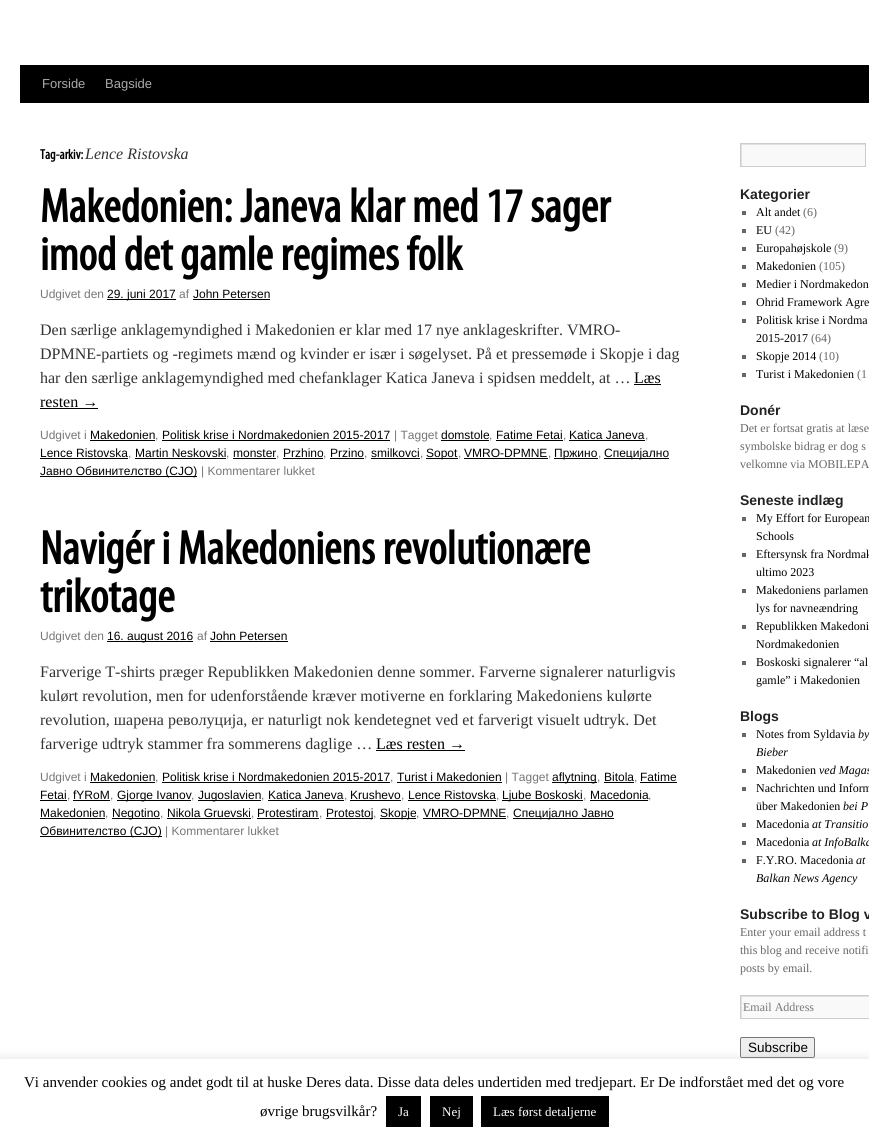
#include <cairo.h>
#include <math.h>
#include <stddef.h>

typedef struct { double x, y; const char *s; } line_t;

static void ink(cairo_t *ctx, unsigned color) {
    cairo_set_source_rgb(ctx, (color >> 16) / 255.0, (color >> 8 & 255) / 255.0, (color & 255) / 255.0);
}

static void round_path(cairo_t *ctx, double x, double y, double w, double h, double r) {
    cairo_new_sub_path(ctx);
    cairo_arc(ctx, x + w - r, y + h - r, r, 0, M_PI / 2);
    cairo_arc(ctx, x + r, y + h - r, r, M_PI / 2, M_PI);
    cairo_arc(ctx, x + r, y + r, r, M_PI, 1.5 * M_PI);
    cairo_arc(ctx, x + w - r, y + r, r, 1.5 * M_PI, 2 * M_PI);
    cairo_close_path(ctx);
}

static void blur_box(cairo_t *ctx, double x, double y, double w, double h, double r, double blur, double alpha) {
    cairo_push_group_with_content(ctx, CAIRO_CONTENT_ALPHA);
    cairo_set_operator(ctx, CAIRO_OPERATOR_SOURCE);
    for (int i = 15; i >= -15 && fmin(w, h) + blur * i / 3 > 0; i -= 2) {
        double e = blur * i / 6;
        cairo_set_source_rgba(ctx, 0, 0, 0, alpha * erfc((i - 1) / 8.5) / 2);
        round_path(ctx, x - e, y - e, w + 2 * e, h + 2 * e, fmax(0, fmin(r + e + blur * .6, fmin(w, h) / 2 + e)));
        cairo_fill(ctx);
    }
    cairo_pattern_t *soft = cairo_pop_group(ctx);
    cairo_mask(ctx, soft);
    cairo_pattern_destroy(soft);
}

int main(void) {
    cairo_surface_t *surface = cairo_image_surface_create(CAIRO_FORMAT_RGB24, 869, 1139);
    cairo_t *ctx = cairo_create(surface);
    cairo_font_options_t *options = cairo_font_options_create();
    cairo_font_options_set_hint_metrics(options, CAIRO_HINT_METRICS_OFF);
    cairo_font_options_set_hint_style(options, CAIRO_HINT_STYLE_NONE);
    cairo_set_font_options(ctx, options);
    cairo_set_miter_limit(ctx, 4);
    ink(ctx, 0xFFFFFF);
    cairo_paint(ctx);
    ink(ctx, 0x000000);
    cairo_rectangle(ctx, 20, 65, 849, 38);
    cairo_fill(ctx);
    cairo_select_font_face(ctx, "Liberation Sans", CAIRO_FONT_SLANT_NORMAL, CAIRO_FONT_WEIGHT_NORMAL);
    cairo_set_font_size(ctx, 13);
    ink(ctx, 0xAAAAAA);
    cairo_move_to(ctx, 42, 88);
    cairo_show_text(ctx, "Forside");
    cairo_move_to(ctx, 105, 88);
    cairo_show_text(ctx, "Bagside");
    cairo_select_font_face(ctx, "Myriad", CAIRO_FONT_SLANT_NORMAL, CAIRO_FONT_WEIGHT_BOLD);
    cairo_set_font_size(ctx, 14);
    ink(ctx, 0x000000);
    cairo_move_to(ctx, 40, 159);
    cairo_show_text(ctx, "Tag-arkiv:");
    cairo_select_font_face(ctx, "Liberation Serif", CAIRO_FONT_SLANT_ITALIC, CAIRO_FONT_WEIGHT_NORMAL);
    cairo_set_font_size(ctx, 16);
    ink(ctx, 0x333333);
    cairo_move_to(ctx, 85, 159);
    cairo_show_text(ctx, "Lence Ristovska");
    cairo_select_font_face(ctx, "Myriad", CAIRO_FONT_SLANT_NORMAL, CAIRO_FONT_WEIGHT_BOLD);
    cairo_set_font_size(ctx, 48);
    ink(ctx, 0x000000);
    cairo_move_to(ctx, 40, 222);
    cairo_show_text(ctx, "Makedonien: Janeva klar med 17 sager");
    cairo_move_to(ctx, 40, 270);
    cairo_show_text(ctx, "imod det gamle regimes folk");
    cairo_select_font_face(ctx, "Liberation Sans", CAIRO_FONT_SLANT_NORMAL, CAIRO_FONT_WEIGHT_NORMAL);
    cairo_set_font_size(ctx, 12);
    ink(ctx, 0x777777);
    cairo_move_to(ctx, 40, 298);
    cairo_show_text(ctx, "Udgivet den");
    ink(ctx, 0x000000);
    cairo_rectangle(ctx, 107, 299, 69, 1);
    cairo_fill(ctx);
    cairo_move_to(ctx, 107, 298);
    cairo_show_text(ctx, "29. juni 2017");
    ink(ctx, 0x777777);
    cairo_move_to(ctx, 179, 298);
    cairo_show_text(ctx, "af");
    ink(ctx, 0x000000);
    cairo_move_to(ctx, 193, 298);
    cairo_show_text(ctx, "John Petersen");
    cairo_rectangle(ctx, 193, 299, 77, 1);
    cairo_fill(ctx);
    cairo_select_font_face(ctx, "Liberation Serif", CAIRO_FONT_SLANT_NORMAL, CAIRO_FONT_WEIGHT_NORMAL);
    cairo_set_font_size(ctx, 16);
    ink(ctx, 0x333333);
    {
        static const line_t items[] = {
            {40, 335, "Den særlige anklagemyndighed i Makedonien er klar med 17 nye anklageskrifter. VMRO-"},
            {40, 359, "DPMNE-partiets og -regimets mænd og kvinder er især i søgelyset. På et pressemøde i Skopje i dag"},
            {40, 383, "har den særlige anklagemyndighed med chefanklager Katica Janeva i spidsen meddelt, at …"},
        };
        for (size_t i = 0; i < sizeof items / sizeof *items; i++) {
            cairo_move_to(ctx, items[i].x, items[i].y);
            cairo_show_text(ctx, items[i].s);
        }
    }
    ink(ctx, 0x000000);
    cairo_move_to(ctx, 634, 383);
    cairo_show_text(ctx, "Læs");
    cairo_rectangle(ctx, 634, 384, 27, 1);
    cairo_fill(ctx);
    cairo_move_to(ctx, 40, 407);
    cairo_show_text(ctx, "resten →");
    cairo_rectangle(ctx, 40, 408, 58, 1);
    cairo_fill(ctx);
    cairo_select_font_face(ctx, "Liberation Sans", CAIRO_FONT_SLANT_NORMAL, CAIRO_FONT_WEIGHT_NORMAL);
    cairo_set_font_size(ctx, 12);
    ink(ctx, 0x777777);
    cairo_move_to(ctx, 40, 439);
    cairo_show_text(ctx, "Udgivet i");
    ink(ctx, 0x000000);
    cairo_move_to(ctx, 90, 439);
    cairo_show_text(ctx, "Makedonien");
    ink(ctx, 0x777777);
    cairo_move_to(ctx, 155, 439);
    cairo_show_text(ctx, ",");
    ink(ctx, 0x000000);
    cairo_rectangle(ctx, 90, 440, 65, 1);
    cairo_fill(ctx);
    cairo_rectangle(ctx, 162, 440, 228, 1);
    cairo_fill(ctx);
    cairo_move_to(ctx, 162, 439);
    cairo_show_text(ctx, "Politisk krise i Nordmakedonien 2015-2017");
    ink(ctx, 0x777777);
    cairo_move_to(ctx, 394, 439);
    cairo_show_text(ctx, "| Tagget");
    ink(ctx, 0x000000);
    cairo_move_to(ctx, 441, 439);
    cairo_show_text(ctx, "domstole");
    ink(ctx, 0x777777);
    cairo_move_to(ctx, 489, 439);
    cairo_show_text(ctx, ",");
    ink(ctx, 0x000000);
    cairo_rectangle(ctx, 441, 440, 48, 1);
    cairo_fill(ctx);
    cairo_move_to(ctx, 496, 439);
    cairo_show_text(ctx, "Fatime Fetai");
    ink(ctx, 0x777777);
    cairo_move_to(ctx, 563, 439);
    cairo_show_text(ctx, ",");
    ink(ctx, 0x000000);
    cairo_rectangle(ctx, 496, 440, 67, 1);
    cairo_fill(ctx);
    cairo_move_to(ctx, 569, 439);
    cairo_show_text(ctx, "Katica Janeva");
    ink(ctx, 0x777777);
    cairo_move_to(ctx, 645, 439);
    cairo_show_text(ctx, ",");
    ink(ctx, 0x000000);
    cairo_rectangle(ctx, 569, 440, 76, 1);
    cairo_fill(ctx);
    cairo_move_to(ctx, 40, 457);
    cairo_show_text(ctx, "Lence Ristovska");
    ink(ctx, 0x777777);
    cairo_move_to(ctx, 128, 457);
    cairo_show_text(ctx, ",");
    ink(ctx, 0x000000);
    cairo_rectangle(ctx, 40, 458, 88, 1);
    cairo_fill(ctx);
    cairo_move_to(ctx, 135, 457);
    cairo_show_text(ctx, "Martin Neskovski");
    ink(ctx, 0x777777);
    cairo_move_to(ctx, 226, 457);
    cairo_show_text(ctx, ",");
    ink(ctx, 0x000000);
    cairo_rectangle(ctx, 135, 458, 91, 1);
    cairo_fill(ctx);
    cairo_move_to(ctx, 233, 457);
    cairo_show_text(ctx, "monster");
    ink(ctx, 0x777777);
    cairo_move_to(ctx, 276, 457);
    cairo_show_text(ctx, ",");
    ink(ctx, 0x000000);
    cairo_rectangle(ctx, 233, 458, 43, 1);
    cairo_fill(ctx);
    cairo_move_to(ctx, 283, 457);
    cairo_show_text(ctx, "Przhino");
    ink(ctx, 0x777777);
    cairo_move_to(ctx, 323, 457);
    cairo_show_text(ctx, ",");
    ink(ctx, 0x000000);
    cairo_rectangle(ctx, 283, 458, 40, 1);
    cairo_fill(ctx);
    cairo_move_to(ctx, 330, 457);
    cairo_show_text(ctx, "Przino");
    ink(ctx, 0x777777);
    cairo_move_to(ctx, 364, 457);
    cairo_show_text(ctx, ",");
    ink(ctx, 0x000000);
    cairo_rectangle(ctx, 330, 458, 34, 1);
    cairo_fill(ctx);
    cairo_move_to(ctx, 371, 457);
    cairo_show_text(ctx, "smilkovci");
    ink(ctx, 0x777777);
    cairo_move_to(ctx, 420, 457);
    cairo_show_text(ctx, ",");
    ink(ctx, 0x000000);
    cairo_rectangle(ctx, 371, 458, 49, 1);
    cairo_fill(ctx);
    cairo_rectangle(ctx, 426, 458, 32, 1);
    cairo_fill(ctx);
    cairo_move_to(ctx, 426, 457);
    cairo_show_text(ctx, "Sopot");
    ink(ctx, 0x777777);
    cairo_move_to(ctx, 458, 457);
    cairo_show_text(ctx, ",");
    ink(ctx, 0x000000);
    cairo_move_to(ctx, 464, 457);
    cairo_show_text(ctx, "VMRO-DPMNE");
    ink(ctx, 0x777777);
    cairo_move_to(ctx, 548, 457);
    cairo_show_text(ctx, ",");
    ink(ctx, 0x000000);
    cairo_rectangle(ctx, 464, 458, 84, 1);
    cairo_fill(ctx);
    cairo_rectangle(ctx, 554, 458, 44, 1);
    cairo_fill(ctx);
    cairo_move_to(ctx, 554, 457);
    cairo_show_text(ctx, "Пржино");
    ink(ctx, 0x777777);
    cairo_move_to(ctx, 598, 457);
    cairo_show_text(ctx, ",");
    ink(ctx, 0x000000);
    cairo_rectangle(ctx, 604, 458, 65, 1);
    cairo_fill(ctx);
    cairo_move_to(ctx, 604, 457);
    cairo_show_text(ctx, "Специјално");
    cairo_rectangle(ctx, 40, 476, 157, 1);
    cairo_fill(ctx);
    cairo_move_to(ctx, 40, 475);
    cairo_show_text(ctx, "Јавно Обвинителство (СЈО)");
    ink(ctx, 0x777777);
    cairo_move_to(ctx, 201, 475);
    cairo_show_text(ctx, "| Kommentarer lukket");
    cairo_select_font_face(ctx, "Myriad", CAIRO_FONT_SLANT_NORMAL, CAIRO_FONT_WEIGHT_BOLD);
    cairo_set_font_size(ctx, 48);
    ink(ctx, 0x000000);
    cairo_move_to(ctx, 40, 564);
    cairo_show_text(ctx, "Navigér i Makedoniens revolutionære");
    cairo_move_to(ctx, 40, 612);
    cairo_show_text(ctx, "trikotage");
    cairo_select_font_face(ctx, "Liberation Sans", CAIRO_FONT_SLANT_NORMAL, CAIRO_FONT_WEIGHT_NORMAL);
    cairo_set_font_size(ctx, 12);
    ink(ctx, 0x777777);
    cairo_move_to(ctx, 40, 640);
    cairo_show_text(ctx, "Udgivet den");
    ink(ctx, 0x000000);
    cairo_rectangle(ctx, 107, 641, 86, 1);
    cairo_fill(ctx);
    cairo_move_to(ctx, 107, 640);
    cairo_show_text(ctx, "16. august 2016");
    ink(ctx, 0x777777);
    cairo_move_to(ctx, 197, 640);
    cairo_show_text(ctx, "af");
    ink(ctx, 0x000000);
    cairo_move_to(ctx, 210, 640);
    cairo_show_text(ctx, "John Petersen");
    cairo_rectangle(ctx, 210, 641, 78, 1);
    cairo_fill(ctx);
    cairo_select_font_face(ctx, "Liberation Serif", CAIRO_FONT_SLANT_NORMAL, CAIRO_FONT_WEIGHT_NORMAL);
    cairo_set_font_size(ctx, 16);
    ink(ctx, 0x333333);
    {
        static const line_t items[] = {
            {40, 677, "Farverige T-shirts præger Republikken Makedonien denne sommer. Farverne signalerer naturligvis"},
            {40, 701, "kulørt revolution, men for udenforstående kræver motiverne en forklaring Makedoniens kulørte"},
            {40, 725, "revolution, шарена револуција, er naturligt nok kendetegnet ved et farverigt visuelt udtryk. Det"},
            {40, 749, "farverige udtryk stammer fra sommerens daglige …"},
        };
        for (size_t i = 0; i < sizeof items / sizeof *items; i++) {
            cairo_move_to(ctx, items[i].x, items[i].y);
            cairo_show_text(ctx, items[i].s);
        }
    }
    ink(ctx, 0x000000);
    cairo_move_to(ctx, 376, 749);
    cairo_show_text(ctx, "Læs resten →");
    cairo_rectangle(ctx, 376, 750, 89, 1);
    cairo_fill(ctx);
    cairo_select_font_face(ctx, "Liberation Sans", CAIRO_FONT_SLANT_NORMAL, CAIRO_FONT_WEIGHT_NORMAL);
    cairo_set_font_size(ctx, 12);
    ink(ctx, 0x777777);
    cairo_move_to(ctx, 40, 781);
    cairo_show_text(ctx, "Udgivet i");
    ink(ctx, 0x000000);
    cairo_move_to(ctx, 90, 781);
    cairo_show_text(ctx, "Makedonien");
    ink(ctx, 0x777777);
    cairo_move_to(ctx, 155, 781);
    cairo_show_text(ctx, ",");
    ink(ctx, 0x000000);
    cairo_rectangle(ctx, 90, 782, 65, 1);
    cairo_fill(ctx);
    cairo_move_to(ctx, 162, 781);
    cairo_show_text(ctx, "Politisk krise i Nordmakedonien 2015-2017");
    ink(ctx, 0x777777);
    cairo_move_to(ctx, 390, 781);
    cairo_show_text(ctx, ",");
    ink(ctx, 0x000000);
    cairo_rectangle(ctx, 162, 782, 228, 1);
    cairo_fill(ctx);
    cairo_rectangle(ctx, 397, 782, 105, 1);
    cairo_fill(ctx);
    cairo_move_to(ctx, 397, 781);
    cairo_show_text(ctx, "Turist i Makedonien");
    ink(ctx, 0x777777);
    cairo_move_to(ctx, 505, 781);
    cairo_show_text(ctx, "| Tagget");
    ink(ctx, 0x000000);
    cairo_rectangle(ctx, 552, 782, 45, 1);
    cairo_fill(ctx);
    cairo_move_to(ctx, 552, 781);
    cairo_show_text(ctx, "aflytning");
    ink(ctx, 0x777777);
    cairo_move_to(ctx, 597, 781);
    cairo_show_text(ctx, ",");
    ink(ctx, 0x000000);
    cairo_move_to(ctx, 604, 781);
    cairo_show_text(ctx, "Bitola");
    ink(ctx, 0x777777);
    cairo_move_to(ctx, 634, 781);
    cairo_show_text(ctx, ",");
    ink(ctx, 0x000000);
    cairo_rectangle(ctx, 604, 782, 30, 1);
    cairo_fill(ctx);
    cairo_rectangle(ctx, 640, 782, 37, 1);
    cairo_fill(ctx);
    cairo_move_to(ctx, 640, 781);
    cairo_show_text(ctx, "Fatime");
    cairo_move_to(ctx, 40, 799);
    cairo_show_text(ctx, "Fetai");
    ink(ctx, 0x777777);
    cairo_move_to(ctx, 67, 799);
    cairo_show_text(ctx, ",");
    ink(ctx, 0x000000);
    cairo_rectangle(ctx, 40, 800, 27, 1);
    cairo_fill(ctx);
    cairo_move_to(ctx, 73, 799);
    cairo_show_text(ctx, "fYRoM");
    ink(ctx, 0x777777);
    cairo_move_to(ctx, 110, 799);
    cairo_show_text(ctx, ",");
    ink(ctx, 0x000000);
    cairo_rectangle(ctx, 73, 800, 37, 1);
    cairo_fill(ctx);
    cairo_rectangle(ctx, 117, 800, 74, 1);
    cairo_fill(ctx);
    cairo_move_to(ctx, 117, 799);
    cairo_show_text(ctx, "Gjorge Ivanov");
    ink(ctx, 0x777777);
    cairo_move_to(ctx, 191, 799);
    cairo_show_text(ctx, ",");
    ink(ctx, 0x000000);
    cairo_rectangle(ctx, 198, 800, 63, 1);
    cairo_fill(ctx);
    cairo_move_to(ctx, 198, 799);
    cairo_show_text(ctx, "Jugoslavien");
    ink(ctx, 0x777777);
    cairo_move_to(ctx, 261, 799);
    cairo_show_text(ctx, ",");
    ink(ctx, 0x000000);
    cairo_move_to(ctx, 268, 799);
    cairo_show_text(ctx, "Katica Janeva");
    ink(ctx, 0x777777);
    cairo_move_to(ctx, 344, 799);
    cairo_show_text(ctx, ",");
    ink(ctx, 0x000000);
    cairo_rectangle(ctx, 268, 800, 76, 1);
    cairo_fill(ctx);
    cairo_move_to(ctx, 350, 799);
    cairo_show_text(ctx, "Krushevo");
    ink(ctx, 0x777777);
    cairo_move_to(ctx, 401, 799);
    cairo_show_text(ctx, ",");
    ink(ctx, 0x000000);
    cairo_rectangle(ctx, 350, 800, 51, 1);
    cairo_fill(ctx);
    cairo_move_to(ctx, 408, 799);
    cairo_show_text(ctx, "Lence Ristovska");
    ink(ctx, 0x777777);
    cairo_move_to(ctx, 496, 799);
    cairo_show_text(ctx, ",");
    ink(ctx, 0x000000);
    cairo_rectangle(ctx, 408, 800, 88, 1);
    cairo_fill(ctx);
    cairo_rectangle(ctx, 502, 800, 81, 1);
    cairo_fill(ctx);
    cairo_move_to(ctx, 502, 799);
    cairo_show_text(ctx, "Ljube Boskoski");
    ink(ctx, 0x777777);
    cairo_move_to(ctx, 583, 799);
    cairo_show_text(ctx, ",");
    ink(ctx, 0x000000);
    cairo_move_to(ctx, 590, 799);
    cairo_show_text(ctx, "Macedonia");
    ink(ctx, 0x777777);
    cairo_move_to(ctx, 648, 799);
    cairo_show_text(ctx, ",");
    ink(ctx, 0x000000);
    cairo_rectangle(ctx, 590, 800, 58, 1);
    cairo_fill(ctx);
    cairo_move_to(ctx, 40, 817);
    cairo_show_text(ctx, "Makedonien");
    ink(ctx, 0x777777);
    cairo_move_to(ctx, 105, 817);
    cairo_show_text(ctx, ",");
    ink(ctx, 0x000000);
    cairo_rectangle(ctx, 40, 818, 65, 1);
    cairo_fill(ctx);
    cairo_rectangle(ctx, 112, 818, 48, 1);
    cairo_fill(ctx);
    cairo_move_to(ctx, 112, 817);
    cairo_show_text(ctx, "Negotino");
    ink(ctx, 0x777777);
    cairo_move_to(ctx, 160, 817);
    cairo_show_text(ctx, ",");
    ink(ctx, 0x000000);
    cairo_move_to(ctx, 167, 817);
    cairo_show_text(ctx, "Nikola Gruevski");
    ink(ctx, 0x777777);
    cairo_move_to(ctx, 251, 817);
    cairo_show_text(ctx, ",");
    ink(ctx, 0x000000);
    cairo_rectangle(ctx, 167, 818, 84, 1);
    cairo_fill(ctx);
    cairo_move_to(ctx, 257, 817);
    cairo_show_text(ctx, "Protestiram");
    ink(ctx, 0x777777);
    cairo_move_to(ctx, 319, 817);
    cairo_show_text(ctx, ",");
    ink(ctx, 0x000000);
    cairo_rectangle(ctx, 257, 818, 62, 1);
    cairo_fill(ctx);
    cairo_rectangle(ctx, 326, 818, 47, 1);
    cairo_fill(ctx);
    cairo_move_to(ctx, 326, 817);
    cairo_show_text(ctx, "Protestoj");
    ink(ctx, 0x777777);
    cairo_move_to(ctx, 373, 817);
    cairo_show_text(ctx, ",");
    ink(ctx, 0x000000);
    cairo_rectangle(ctx, 380, 818, 36, 1);
    cairo_fill(ctx);
    cairo_move_to(ctx, 380, 817);
    cairo_show_text(ctx, "Skopje");
    ink(ctx, 0x777777);
    cairo_move_to(ctx, 416, 817);
    cairo_show_text(ctx, ",");
    ink(ctx, 0x000000);
    cairo_move_to(ctx, 423, 817);
    cairo_show_text(ctx, "VMRO-DPMNE");
    ink(ctx, 0x777777);
    cairo_move_to(ctx, 506, 817);
    cairo_show_text(ctx, ",");
    ink(ctx, 0x000000);
    cairo_rectangle(ctx, 423, 818, 83, 1);
    cairo_fill(ctx);
    cairo_rectangle(ctx, 513, 818, 101, 1);
    cairo_fill(ctx);
    cairo_move_to(ctx, 513, 817);
    cairo_show_text(ctx, "Специјално Јавно");
    cairo_rectangle(ctx, 40, 836, 122, 1);
    cairo_fill(ctx);
    cairo_move_to(ctx, 40, 835);
    cairo_show_text(ctx, "Обвинителство (СЈО)");
    ink(ctx, 0x777777);
    cairo_move_to(ctx, 165, 835);
    cairo_show_text(ctx, "| Kommentarer lukket");
    ink(ctx, 0xF9F9F9);
    cairo_rectangle(ctx, 742, 145, 123, 21);
    cairo_fill(ctx);
    cairo_save(ctx);
    cairo_rectangle(ctx, 741, 144, 124, 22);
    cairo_clip(ctx);
    ink(ctx, 0xE0E0E0);
    cairo_set_fill_rule(ctx, CAIRO_FILL_RULE_EVEN_ODD);
    cairo_new_path(ctx);
    cairo_move_to(ctx, 642, 45);
    cairo_line_to(ctx, 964, 45);
    cairo_line_to(ctx, 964, 265);
    cairo_line_to(ctx, 642, 265);
    cairo_close_path(ctx);
    cairo_move_to(ctx, 742, 145);
    cairo_line_to(ctx, 866, 145);
    cairo_line_to(ctx, 866, 167);
    cairo_line_to(ctx, 742, 167);
    cairo_close_path(ctx);
    cairo_fill(ctx);
    cairo_restore(ctx);
    cairo_rectangle(ctx, 740.5, 143.5, 125, 23);
    ink(ctx, 0xCCCCCC);
    cairo_set_line_width(ctx, 1);
    cairo_stroke(ctx);
    cairo_select_font_face(ctx, "Liberation Sans", CAIRO_FONT_SLANT_NORMAL, CAIRO_FONT_WEIGHT_BOLD);
    cairo_set_font_size(ctx, 14);
    ink(ctx, 0x222222);
    cairo_move_to(ctx, 740, 199);
    cairo_show_text(ctx, "Kategorier");
    ink(ctx, 0x666666);
    cairo_rectangle(ctx, 742, 211, 4, 4);
    cairo_fill(ctx);
    cairo_select_font_face(ctx, "Liberation Serif", CAIRO_FONT_SLANT_NORMAL, CAIRO_FONT_WEIGHT_NORMAL);
    cairo_set_font_size(ctx, 12);
    ink(ctx, 0x000000);
    cairo_move_to(ctx, 756, 216);
    cairo_show_text(ctx, "Alt andet");
    ink(ctx, 0x666666);
    cairo_move_to(ctx, 803, 216);
    cairo_show_text(ctx, "(6)");
    cairo_rectangle(ctx, 742, 229, 4, 4);
    cairo_fill(ctx);
    ink(ctx, 0x000000);
    cairo_move_to(ctx, 756, 234);
    cairo_show_text(ctx, "EU");
    ink(ctx, 0x666666);
    cairo_move_to(ctx, 775, 234);
    cairo_show_text(ctx, "(42)");
    cairo_rectangle(ctx, 742, 247, 4, 4);
    cairo_fill(ctx);
    ink(ctx, 0x000000);
    cairo_move_to(ctx, 756, 252);
    cairo_show_text(ctx, "Europahøjskole");
    ink(ctx, 0x666666);
    cairo_move_to(ctx, 834, 252);
    cairo_show_text(ctx, "(9)");
    cairo_rectangle(ctx, 742, 265, 4, 4);
    cairo_fill(ctx);
    ink(ctx, 0x000000);
    cairo_move_to(ctx, 756, 270);
    cairo_show_text(ctx, "Makedonien");
    ink(ctx, 0x666666);
    cairo_move_to(ctx, 819, 270);
    cairo_show_text(ctx, "(105)");
    cairo_rectangle(ctx, 742, 283, 4, 4);
    cairo_fill(ctx);
    ink(ctx, 0x000000);
    cairo_move_to(ctx, 756, 288);
    cairo_show_text(ctx, "Medier i Nordmakedon");
    ink(ctx, 0x666666);
    cairo_rectangle(ctx, 742, 301, 4, 4);
    cairo_fill(ctx);
    ink(ctx, 0x000000);
    cairo_move_to(ctx, 756, 306);
    cairo_show_text(ctx, "Ohrid Framework Agre");
    ink(ctx, 0x666666);
    cairo_rectangle(ctx, 742, 319, 4, 4);
    cairo_fill(ctx);
    ink(ctx, 0x000000);
    cairo_move_to(ctx, 756, 324);
    cairo_show_text(ctx, "Politisk krise i Nordma");
    cairo_move_to(ctx, 756, 342);
    cairo_show_text(ctx, "2015-2017");
    ink(ctx, 0x666666);
    cairo_move_to(ctx, 811, 342);
    cairo_show_text(ctx, "(64)");
    cairo_rectangle(ctx, 742, 355, 4, 4);
    cairo_fill(ctx);
    ink(ctx, 0x000000);
    cairo_move_to(ctx, 756, 360);
    cairo_show_text(ctx, "Skopje 2014");
    ink(ctx, 0x666666);
    cairo_move_to(ctx, 819, 360);
    cairo_show_text(ctx, "(10)");
    cairo_rectangle(ctx, 742, 373, 4, 4);
    cairo_fill(ctx);
    ink(ctx, 0x000000);
    cairo_move_to(ctx, 756, 378);
    cairo_show_text(ctx, "Turist i Makedonien");
    ink(ctx, 0x666666);
    cairo_move_to(ctx, 857, 378);
    cairo_show_text(ctx, "(1");
    cairo_select_font_face(ctx, "Liberation Sans", CAIRO_FONT_SLANT_NORMAL, CAIRO_FONT_WEIGHT_BOLD);
    cairo_set_font_size(ctx, 14);
    ink(ctx, 0x222222);
    cairo_move_to(ctx, 740, 415);
    cairo_show_text(ctx, "Donér");
    cairo_select_font_face(ctx, "Liberation Serif", CAIRO_FONT_SLANT_NORMAL, CAIRO_FONT_WEIGHT_NORMAL);
    cairo_set_font_size(ctx, 12);
    ink(ctx, 0x666666);
    {
        static const line_t items[] = {
            {740, 432, "Det er fortsat gratis at læse"},
            {740, 450, "symbolske bidrag er dog s"},
            {740, 468, "velkomne via MOBILEPA"},
        };
        for (size_t i = 0; i < sizeof items / sizeof *items; i++) {
            cairo_move_to(ctx, items[i].x, items[i].y);
            cairo_show_text(ctx, items[i].s);
        }
    }
    cairo_select_font_face(ctx, "Liberation Sans", CAIRO_FONT_SLANT_NORMAL, CAIRO_FONT_WEIGHT_BOLD);
    cairo_set_font_size(ctx, 14);
    ink(ctx, 0x222222);
    cairo_move_to(ctx, 740, 505);
    cairo_show_text(ctx, "Seneste indlæg");
    ink(ctx, 0x666666);
    cairo_rectangle(ctx, 742, 517, 4, 4);
    cairo_fill(ctx);
    cairo_select_font_face(ctx, "Liberation Serif", CAIRO_FONT_SLANT_NORMAL, CAIRO_FONT_WEIGHT_NORMAL);
    cairo_set_font_size(ctx, 12);
    ink(ctx, 0x000000);
    cairo_move_to(ctx, 756, 522);
    cairo_show_text(ctx, "My Effort for European");
    cairo_move_to(ctx, 756, 540);
    cairo_show_text(ctx, "Schools");
    ink(ctx, 0x666666);
    cairo_rectangle(ctx, 742, 553, 4, 4);
    cairo_fill(ctx);
    ink(ctx, 0x000000);
    cairo_move_to(ctx, 756, 558);
    cairo_show_text(ctx, "Eftersynsk fra Nordmak");
    cairo_move_to(ctx, 756, 576);
    cairo_show_text(ctx, "ultimo 2023");
    ink(ctx, 0x666666);
    cairo_rectangle(ctx, 742, 589, 4, 4);
    cairo_fill(ctx);
    ink(ctx, 0x000000);
    cairo_move_to(ctx, 756, 594);
    cairo_show_text(ctx, "Makedoniens parlamen");
    cairo_move_to(ctx, 756, 612);
    cairo_show_text(ctx, "lys for navneændring");
    ink(ctx, 0x666666);
    cairo_rectangle(ctx, 742, 625, 4, 4);
    cairo_fill(ctx);
    ink(ctx, 0x000000);
    cairo_move_to(ctx, 756, 630);
    cairo_show_text(ctx, "Republikken Makedoni");
    cairo_move_to(ctx, 756, 648);
    cairo_show_text(ctx, "Nordmakedonien");
    ink(ctx, 0x666666);
    cairo_rectangle(ctx, 742, 661, 4, 4);
    cairo_fill(ctx);
    ink(ctx, 0x000000);
    cairo_move_to(ctx, 756, 666);
    cairo_show_text(ctx, "Boskoski signalerer “al");
    cairo_move_to(ctx, 756, 684);
    cairo_show_text(ctx, "gamle” i Makedonien");
    cairo_select_font_face(ctx, "Liberation Sans", CAIRO_FONT_SLANT_NORMAL, CAIRO_FONT_WEIGHT_BOLD);
    cairo_set_font_size(ctx, 14);
    ink(ctx, 0x222222);
    cairo_move_to(ctx, 740, 721);
    cairo_show_text(ctx, "Blogs");
    ink(ctx, 0x666666);
    cairo_rectangle(ctx, 742, 733, 4, 4);
    cairo_fill(ctx);
    cairo_select_font_face(ctx, "Liberation Serif", CAIRO_FONT_SLANT_NORMAL, CAIRO_FONT_WEIGHT_NORMAL);
    cairo_set_font_size(ctx, 12);
    ink(ctx, 0x000000);
    cairo_move_to(ctx, 756, 738);
    cairo_show_text(ctx, "Notes from Syldavia");
    cairo_select_font_face(ctx, "Liberation Serif", CAIRO_FONT_SLANT_ITALIC, CAIRO_FONT_WEIGHT_NORMAL);
    cairo_move_to(ctx, 858, 738);
    cairo_show_text(ctx, "by");
    cairo_move_to(ctx, 756, 756);
    cairo_show_text(ctx, "Bieber");
    ink(ctx, 0x666666);
    cairo_rectangle(ctx, 742, 769, 4, 4);
    cairo_fill(ctx);
    cairo_select_font_face(ctx, "Liberation Serif", CAIRO_FONT_SLANT_NORMAL, CAIRO_FONT_WEIGHT_NORMAL);
    ink(ctx, 0x000000);
    cairo_move_to(ctx, 756, 774);
    cairo_show_text(ctx, "Makedonien");
    cairo_select_font_face(ctx, "Liberation Serif", CAIRO_FONT_SLANT_ITALIC, CAIRO_FONT_WEIGHT_NORMAL);
    cairo_move_to(ctx, 819, 774);
    cairo_show_text(ctx, "ved Magas");
    ink(ctx, 0x666666);
    cairo_rectangle(ctx, 742, 787, 4, 4);
    cairo_fill(ctx);
    cairo_select_font_face(ctx, "Liberation Serif", CAIRO_FONT_SLANT_NORMAL, CAIRO_FONT_WEIGHT_NORMAL);
    ink(ctx, 0x000000);
    cairo_move_to(ctx, 756, 792);
    cairo_show_text(ctx, "Nachrichten und Inform");
    cairo_move_to(ctx, 756, 810);
    cairo_show_text(ctx, "über Makedonien");
    cairo_select_font_face(ctx, "Liberation Serif", CAIRO_FONT_SLANT_ITALIC, CAIRO_FONT_WEIGHT_NORMAL);
    cairo_move_to(ctx, 843, 810);
    cairo_show_text(ctx, "bei P");
    ink(ctx, 0x666666);
    cairo_rectangle(ctx, 742, 823, 4, 4);
    cairo_fill(ctx);
    cairo_select_font_face(ctx, "Liberation Serif", CAIRO_FONT_SLANT_NORMAL, CAIRO_FONT_WEIGHT_NORMAL);
    ink(ctx, 0x000000);
    cairo_move_to(ctx, 756, 828);
    cairo_show_text(ctx, "Macedonia");
    cairo_select_font_face(ctx, "Liberation Serif", CAIRO_FONT_SLANT_ITALIC, CAIRO_FONT_WEIGHT_NORMAL);
    cairo_move_to(ctx, 812, 828);
    cairo_show_text(ctx, "at Transitio");
    ink(ctx, 0x666666);
    cairo_rectangle(ctx, 742, 841, 4, 4);
    cairo_fill(ctx);
    cairo_select_font_face(ctx, "Liberation Serif", CAIRO_FONT_SLANT_NORMAL, CAIRO_FONT_WEIGHT_NORMAL);
    ink(ctx, 0x000000);
    cairo_move_to(ctx, 756, 846);
    cairo_show_text(ctx, "Macedonia");
    cairo_select_font_face(ctx, "Liberation Serif", CAIRO_FONT_SLANT_ITALIC, CAIRO_FONT_WEIGHT_NORMAL);
    cairo_move_to(ctx, 812, 846);
    cairo_show_text(ctx, "at InfoBalka");
    ink(ctx, 0x666666);
    cairo_rectangle(ctx, 742, 859, 4, 4);
    cairo_fill(ctx);
    cairo_select_font_face(ctx, "Liberation Serif", CAIRO_FONT_SLANT_NORMAL, CAIRO_FONT_WEIGHT_NORMAL);
    ink(ctx, 0x000000);
    cairo_move_to(ctx, 756, 864);
    cairo_show_text(ctx, "F.Y.RO. Macedonia");
    cairo_select_font_face(ctx, "Liberation Serif", CAIRO_FONT_SLANT_ITALIC, CAIRO_FONT_WEIGHT_NORMAL);
    cairo_move_to(ctx, 856, 864);
    cairo_show_text(ctx, "at");
    cairo_move_to(ctx, 756, 882);
    cairo_show_text(ctx, "Balkan News Agency");
    cairo_select_font_face(ctx, "Liberation Sans", CAIRO_FONT_SLANT_NORMAL, CAIRO_FONT_WEIGHT_BOLD);
    cairo_set_font_size(ctx, 14);
    ink(ctx, 0x222222);
    cairo_move_to(ctx, 740, 919);
    cairo_show_text(ctx, "Subscribe to Blog v");
    cairo_select_font_face(ctx, "Liberation Serif", CAIRO_FONT_SLANT_NORMAL, CAIRO_FONT_WEIGHT_NORMAL);
    cairo_set_font_size(ctx, 12);
    ink(ctx, 0x666666);
    {
        static const line_t items[] = {
            {740, 936, "Enter your email address t"},
            {740, 954, "this blog and receive notifi"},
            {740, 972, "posts by email."},
        };
        for (size_t i = 0; i < sizeof items / sizeof *items; i++) {
            cairo_move_to(ctx, items[i].x, items[i].y);
            cairo_show_text(ctx, items[i].s);
        }
    }
    ink(ctx, 0xF9F9F9);
    cairo_rectangle(ctx, 742, 997, 127, 21);
    cairo_fill(ctx);
    cairo_save(ctx);
    cairo_rectangle(ctx, 741, 996, 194, 22);
    cairo_clip(ctx);
    ink(ctx, 0xE0E0E0);
    cairo_set_fill_rule(ctx, CAIRO_FILL_RULE_EVEN_ODD);
    cairo_new_path(ctx);
    cairo_move_to(ctx, 642, 897);
    cairo_line_to(ctx, 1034, 897);
    cairo_line_to(ctx, 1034, 1117);
    cairo_line_to(ctx, 642, 1117);
    cairo_close_path(ctx);
    cairo_move_to(ctx, 742, 997);
    cairo_line_to(ctx, 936, 997);
    cairo_line_to(ctx, 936, 1019);
    cairo_line_to(ctx, 742, 1019);
    cairo_close_path(ctx);
    cairo_fill(ctx);
    cairo_restore(ctx);
    cairo_rectangle(ctx, 740.5, 995.5, 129, 23);
    ink(ctx, 0xCCCCCC);
    cairo_stroke(ctx);
    ink(ctx, 0x777777);
    cairo_move_to(ctx, 743, 1011);
    cairo_show_text(ctx, "Email Address");
    ink(ctx, 0xEFEFEF);
    round_path(ctx, 740.5, 1037.5, 74, 20, 1.5);
    cairo_fill_preserve(ctx);
    ink(ctx, 0x767676);
    cairo_stroke(ctx);
    cairo_select_font_face(ctx, "Liberation Sans", CAIRO_FONT_SLANT_NORMAL, CAIRO_FONT_WEIGHT_NORMAL);
    cairo_set_font_size(ctx, 13.5);
    ink(ctx, 0x000000);
    cairo_move_to(ctx, 748, 1052);
    cairo_show_text(ctx, "Subscribe");
    ink(ctx, 0xACABAB);
    blur_box(ctx, 0, 1058, 869, 80, 0, 5, 0.3);
    ink(ctx, 0xFFFFFF);
    cairo_rectangle(ctx, 0, 1059, 869, 80);
    cairo_fill(ctx);
    cairo_select_font_face(ctx, "Liberation Serif", CAIRO_FONT_SLANT_NORMAL, CAIRO_FONT_WEIGHT_NORMAL);
    cairo_set_font_size(ctx, 15);
    ink(ctx, 0x000000);
    cairo_move_to(ctx, 24, 1087);
    cairo_show_text(ctx, "Vi anvender cookies og andet godt til at huske Deres data. Disse data deles undertiden med tredjepart. Er De indforstået med det og vore");
    cairo_move_to(ctx, 260, 1116);
    cairo_show_text(ctx, "øvrige brugsvilkår?");
    cairo_rectangle(ctx, 386, 1096, 35, 31);
    cairo_fill(ctx);
    cairo_set_font_size(ctx, 13);
    ink(ctx, 0xFFFFFF);
    cairo_move_to(ctx, 398, 1116);
    cairo_show_text(ctx, "Ja");
    ink(ctx, 0x000000);
    cairo_rectangle(ctx, 430, 1096, 43, 31);
    cairo_fill(ctx);
    ink(ctx, 0xFFFFFF);
    cairo_move_to(ctx, 442, 1116);
    cairo_show_text(ctx, "Nej");
    ink(ctx, 0x000000);
    cairo_rectangle(ctx, 481, 1096, 128, 31);
    cairo_fill(ctx);
    ink(ctx, 0xFFFFFF);
    cairo_move_to(ctx, 493, 1116);
    cairo_show_text(ctx, "Læs først detaljerne");
    cairo_surface_write_to_png(surface, "image.png");
    cairo_font_options_destroy(options);
    cairo_destroy(ctx);
    cairo_surface_destroy(surface);
    return 0;
}
